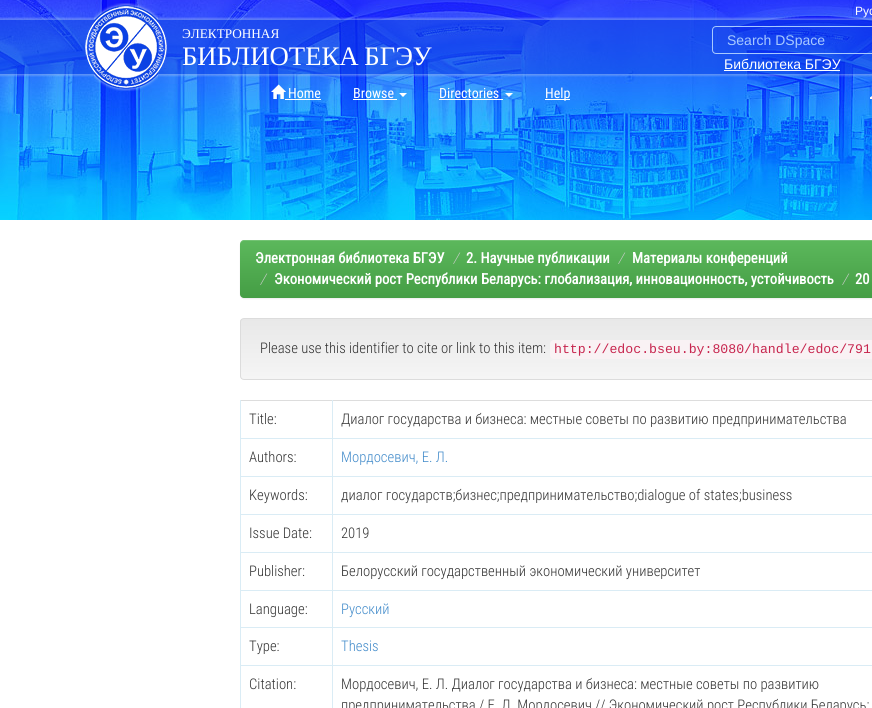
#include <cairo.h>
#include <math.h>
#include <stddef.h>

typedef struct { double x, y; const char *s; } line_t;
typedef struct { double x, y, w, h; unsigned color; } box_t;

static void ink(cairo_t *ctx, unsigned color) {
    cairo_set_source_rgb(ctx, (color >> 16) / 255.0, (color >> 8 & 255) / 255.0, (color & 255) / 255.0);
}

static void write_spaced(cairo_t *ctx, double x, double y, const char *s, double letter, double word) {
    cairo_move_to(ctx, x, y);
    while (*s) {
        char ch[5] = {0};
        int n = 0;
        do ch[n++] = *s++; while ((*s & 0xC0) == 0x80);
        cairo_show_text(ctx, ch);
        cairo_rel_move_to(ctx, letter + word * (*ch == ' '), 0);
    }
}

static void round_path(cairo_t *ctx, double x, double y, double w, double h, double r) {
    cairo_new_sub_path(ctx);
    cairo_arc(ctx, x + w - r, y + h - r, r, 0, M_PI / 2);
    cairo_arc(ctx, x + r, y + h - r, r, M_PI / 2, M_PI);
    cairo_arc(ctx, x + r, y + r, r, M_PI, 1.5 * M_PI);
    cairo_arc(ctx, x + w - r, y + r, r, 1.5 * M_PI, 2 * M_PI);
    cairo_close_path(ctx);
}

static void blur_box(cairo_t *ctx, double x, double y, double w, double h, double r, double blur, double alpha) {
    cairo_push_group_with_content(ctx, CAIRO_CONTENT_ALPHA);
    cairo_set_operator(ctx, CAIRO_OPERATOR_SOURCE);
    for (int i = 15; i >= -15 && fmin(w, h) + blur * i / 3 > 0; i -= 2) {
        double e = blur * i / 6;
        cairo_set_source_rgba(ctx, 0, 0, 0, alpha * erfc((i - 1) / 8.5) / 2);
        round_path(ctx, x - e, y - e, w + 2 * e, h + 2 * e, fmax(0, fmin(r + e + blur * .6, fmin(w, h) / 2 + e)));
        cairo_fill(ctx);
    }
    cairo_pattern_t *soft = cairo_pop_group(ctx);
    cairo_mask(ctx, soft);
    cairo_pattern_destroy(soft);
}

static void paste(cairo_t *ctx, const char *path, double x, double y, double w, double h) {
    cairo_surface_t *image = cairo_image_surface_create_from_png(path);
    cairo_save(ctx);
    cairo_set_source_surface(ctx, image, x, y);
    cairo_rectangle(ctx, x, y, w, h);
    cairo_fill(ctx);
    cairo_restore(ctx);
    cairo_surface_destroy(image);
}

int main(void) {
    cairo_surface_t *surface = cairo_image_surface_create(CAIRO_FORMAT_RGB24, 872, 708);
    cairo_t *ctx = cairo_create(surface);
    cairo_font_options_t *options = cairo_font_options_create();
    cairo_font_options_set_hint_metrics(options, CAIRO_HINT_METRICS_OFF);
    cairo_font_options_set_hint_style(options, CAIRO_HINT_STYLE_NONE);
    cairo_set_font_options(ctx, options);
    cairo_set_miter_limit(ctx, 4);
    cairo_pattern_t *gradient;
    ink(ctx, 0xFFFFFF);
    cairo_paint(ctx);
    paste(ctx, "media/1.png", 0, 0, 872, 220);
    paste(ctx, "media/2.png", 0, 17, 872, 60);
    paste(ctx, "media/3.png", 85, 3, 82, 88);
    cairo_select_font_face(ctx, "Liberation Sans", CAIRO_FONT_SLANT_NORMAL, CAIRO_FONT_WEIGHT_NORMAL);
    cairo_set_font_size(ctx, 12);
    ink(ctx, 0xFFFFFF);
    cairo_move_to(ctx, 855, 15);
    cairo_show_text(ctx, "Рус");
    cairo_select_font_face(ctx, "Liberation Serif", CAIRO_FONT_SLANT_NORMAL, CAIRO_FONT_WEIGHT_NORMAL);
    cairo_set_font_size(ctx, 13.25);
    cairo_move_to(ctx, 182, 38);
    cairo_show_text(ctx, "ЭЛЕКТРОННАЯ");
    cairo_set_font_size(ctx, 26.75);
    write_spaced(ctx, 182, 65, "БИБЛИОТЕКА БГЭУ", 0, -1);
    round_path(ctx, 712.5, 26.5, 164, 27, 3.5);
    ink(ctx, 0xA7C9FF);
    cairo_set_line_width(ctx, 1);
    cairo_stroke(ctx);
    cairo_select_font_face(ctx, "Liberation Sans", CAIRO_FONT_SLANT_NORMAL, CAIRO_FONT_WEIGHT_NORMAL);
    cairo_set_font_size(ctx, 14);
    cairo_move_to(ctx, 727, 45);
    cairo_show_text(ctx, "Search DSpace");
    ink(ctx, 0xFFFFFF);
    cairo_move_to(ctx, 724, 69);
    cairo_show_text(ctx, "Библиотека БГЭУ");
    cairo_rectangle(ctx, 724, 70, 116, 1);
    cairo_fill(ctx);
    paste(ctx, "media/4.png", 271, 84, 15, 15);
    cairo_select_font_face(ctx, "Roboto Condensed", CAIRO_FONT_SLANT_NORMAL, CAIRO_FONT_WEIGHT_NORMAL);
    cairo_move_to(ctx, 288, 98);
    cairo_show_text(ctx, "Home");
    cairo_rectangle(ctx, 285, 99, 36, 1);
    cairo_fill(ctx);
    cairo_move_to(ctx, 353, 98);
    cairo_show_text(ctx, "Browse");
    cairo_rectangle(ctx, 353, 99, 44, 1);
    cairo_fill(ctx);
    cairo_new_path(ctx);
    cairo_move_to(ctx, 399, 93);
    cairo_line_to(ctx, 407, 93);
    cairo_line_to(ctx, 403, 97);
    cairo_close_path(ctx);
    cairo_fill(ctx);
    cairo_move_to(ctx, 439, 98);
    cairo_show_text(ctx, "Directories");
    cairo_rectangle(ctx, 439, 99, 64, 1);
    cairo_fill(ctx);
    cairo_new_path(ctx);
    cairo_move_to(ctx, 505, 93);
    cairo_line_to(ctx, 513, 93);
    cairo_line_to(ctx, 509, 97);
    cairo_close_path(ctx);
    cairo_fill(ctx);
    cairo_rectangle(ctx, 545, 99, 25, 1);
    cairo_fill(ctx);
    cairo_move_to(ctx, 545, 98);
    cairo_show_text(ctx, "Help");
    paste(ctx, "media/5.png", 870, 96, 2, 3);
    ink(ctx, 0x000000);
    blur_box(ctx, 240, 241, 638, 58, 4, 0.5, 0.07);
    gradient = cairo_pattern_create_linear(600, 240, 600, 298);
    cairo_pattern_add_color_stop_rgba(gradient, 0, 0.361, 0.722, 0.361, 1);
    cairo_pattern_add_color_stop_rgba(gradient, 1, 0.267, 0.616, 0.267, 1);
    cairo_set_source(ctx, gradient);
    cairo_pattern_destroy(gradient);
    round_path(ctx, 240, 240, 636, 58, 4);
    cairo_fill(ctx);
    cairo_set_source_rgba(ctx, 1, 1, 1, 0.15);
    cairo_new_path(ctx);
    cairo_move_to(ctx, 244, 241);
    cairo_line_to(ctx, 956, 241);
    cairo_curve_to(ctx, 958, 241, 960, 243, 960, 245);
    cairo_curve_to(ctx, 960, 242, 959, 240, 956, 240);
    cairo_line_to(ctx, 244, 240);
    cairo_line_to(ctx, 241, 241);
    cairo_line_to(ctx, 240, 242);
    cairo_line_to(ctx, 240, 245);
    cairo_curve_to(ctx, 240, 243, 242, 241, 244, 241);
    cairo_close_path(ctx);
    cairo_fill(ctx);
    cairo_select_font_face(ctx, "Roboto Condensed", CAIRO_FONT_SLANT_NORMAL, CAIRO_FONT_WEIGHT_BOLD);
    cairo_set_font_size(ctx, 14.65);
    ink(ctx, 0xFFFFFF);
    cairo_move_to(ctx, 255, 263);
    cairo_show_text(ctx, "Электронная библиотека БГЭУ");
    cairo_select_font_face(ctx, "Roboto Condensed Light", CAIRO_FONT_SLANT_ITALIC, CAIRO_FONT_WEIGHT_NORMAL);
    ink(ctx, 0xCCCCCC);
    cairo_move_to(ctx, 453, 263);
    cairo_show_text(ctx, "/");
    cairo_select_font_face(ctx, "Roboto Condensed", CAIRO_FONT_SLANT_NORMAL, CAIRO_FONT_WEIGHT_BOLD);
    ink(ctx, 0xFFFFFF);
    cairo_move_to(ctx, 466, 263);
    cairo_show_text(ctx, "2. Научные публикации");
    cairo_select_font_face(ctx, "Roboto Condensed Light", CAIRO_FONT_SLANT_ITALIC, CAIRO_FONT_WEIGHT_NORMAL);
    ink(ctx, 0xCCCCCC);
    cairo_move_to(ctx, 618, 263);
    cairo_show_text(ctx, "/");
    cairo_select_font_face(ctx, "Roboto Condensed", CAIRO_FONT_SLANT_NORMAL, CAIRO_FONT_WEIGHT_BOLD);
    ink(ctx, 0xFFFFFF);
    cairo_move_to(ctx, 632, 263);
    cairo_show_text(ctx, "Материалы конференций");
    cairo_select_font_face(ctx, "Roboto Condensed Light", CAIRO_FONT_SLANT_ITALIC, CAIRO_FONT_WEIGHT_NORMAL);
    ink(ctx, 0xCCCCCC);
    cairo_move_to(ctx, 260, 284);
    cairo_show_text(ctx, "/");
    cairo_select_font_face(ctx, "Roboto Condensed", CAIRO_FONT_SLANT_NORMAL, CAIRO_FONT_WEIGHT_BOLD);
    ink(ctx, 0xFFFFFF);
    cairo_move_to(ctx, 274, 284);
    cairo_show_text(ctx, "Экономический рост Республики Беларусь: глобализация, инновационность, устойчивость");
    cairo_select_font_face(ctx, "Roboto Condensed Light", CAIRO_FONT_SLANT_ITALIC, CAIRO_FONT_WEIGHT_NORMAL);
    ink(ctx, 0xCCCCCC);
    cairo_move_to(ctx, 842, 284);
    cairo_show_text(ctx, "/");
    cairo_select_font_face(ctx, "Roboto Condensed", CAIRO_FONT_SLANT_NORMAL, CAIRO_FONT_WEIGHT_BOLD);
    ink(ctx, 0xFFFFFF);
    cairo_move_to(ctx, 855, 284);
    cairo_show_text(ctx, "20");
    cairo_save(ctx);
    round_path(ctx, 240, 318, 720, 62, 4);
    cairo_clip(ctx);
    gradient = cairo_pattern_create_linear(600, 319, 600, 379);
    cairo_pattern_add_color_stop_rgba(gradient, 0, 0.91, 0.91, 0.91, 1);
    cairo_pattern_add_color_stop_rgba(gradient, 1, 0.961, 0.961, 0.961, 1);
    cairo_set_source(ctx, gradient);
    cairo_pattern_destroy(gradient);
    cairo_rectangle(ctx, 240, 319, 632, 60);
    cairo_fill(ctx);
    cairo_restore(ctx);
    round_path(ctx, 240.5, 318.5, 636, 61, 3.5);
    ink(ctx, 0xDCDCDC);
    cairo_stroke(ctx);
    cairo_select_font_face(ctx, "Roboto Condensed Light", CAIRO_FONT_SLANT_NORMAL, CAIRO_FONT_WEIGHT_NORMAL);
    ink(ctx, 0x333333);
    cairo_move_to(ctx, 260, 353);
    cairo_show_text(ctx, "Please use this identifier to cite or link to this item:");
    ink(ctx, 0xF9F2F4);
    round_path(ctx, 550, 340, 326, 19, 4);
    cairo_fill(ctx);
    cairo_select_font_face(ctx, "Liberation Mono", CAIRO_FONT_SLANT_NORMAL, CAIRO_FONT_WEIGHT_NORMAL);
    cairo_set_font_size(ctx, 13.2);
    ink(ctx, 0xC7254E);
    cairo_move_to(ctx, 554, 353);
    cairo_show_text(ctx, "http://edoc.bseu.by:8080/handle/edoc/791");
    {
        static const box_t items[] = {
            {240, 400, 632, 1, 0xDDDDDD},
            {332, 665, 1, 43, 0xDAECF5},
            {332, 665, 540, 1, 0xDAECF5},
            {332, 627, 1, 39, 0xDAECF5},
            {332, 627, 540, 1, 0xDAECF5},
            {332, 590, 1, 38, 0xDAECF5},
            {332, 590, 540, 1, 0xDAECF5},
            {332, 552, 1, 39, 0xDAECF5},
            {332, 552, 540, 1, 0xDAECF5},
            {332, 514, 1, 39, 0xDAECF5},
            {332, 514, 540, 1, 0xDAECF5},
            {332, 476, 1, 39, 0xDAECF5},
            {332, 476, 540, 1, 0xDAECF5},
            {332, 438, 1, 39, 0xDAECF5},
            {332, 438, 540, 1, 0xDAECF5},
            {332, 400, 1, 39, 0xDAECF5},
            {240, 665, 1, 43, 0xDAECF5},
            {240, 665, 93, 1, 0xDAECF5},
            {240, 627, 1, 39, 0xDAECF5},
            {240, 627, 93, 1, 0xDAECF5},
            {240, 590, 1, 38, 0xDAECF5},
            {240, 590, 93, 1, 0xDAECF5},
            {240, 552, 1, 39, 0xDAECF5},
            {240, 552, 93, 1, 0xDAECF5},
            {240, 514, 1, 39, 0xDAECF5},
            {240, 514, 93, 1, 0xDAECF5},
            {240, 476, 1, 39, 0xDAECF5},
            {240, 476, 93, 1, 0xDAECF5},
            {240, 438, 1, 39, 0xDAECF5},
            {240, 438, 93, 1, 0xDAECF5},
            {240, 400, 1, 39, 0xDAECF5},
        };
        for (size_t i = 0; i < sizeof items / sizeof *items; i++) {
            ink(ctx, items[i].color);
            cairo_rectangle(ctx, items[i].x, items[i].y, items[i].w, items[i].h);
            cairo_fill(ctx);
        }
    }
    cairo_select_font_face(ctx, "Roboto Condensed Light", CAIRO_FONT_SLANT_NORMAL, CAIRO_FONT_WEIGHT_NORMAL);
    cairo_set_font_size(ctx, 14.65);
    ink(ctx, 0x333333);
    {
        static const line_t items[] = {
            {249, 424, "Title:"},
            {341, 424, "Диалог государства и бизнеса: местные советы по развитию предпринимательства"},
            {249, 462, "Authors:"},
        };
        for (size_t i = 0; i < sizeof items / sizeof *items; i++) {
            cairo_move_to(ctx, items[i].x, items[i].y);
            cairo_show_text(ctx, items[i].s);
        }
    }
    ink(ctx, 0x428BCA);
    cairo_move_to(ctx, 341, 462);
    cairo_show_text(ctx, "Мордосевич, Е. Л.");
    ink(ctx, 0x333333);
    {
        static const line_t items[] = {
            {249, 500, "Keywords:"},
            {341, 500, "диалог государств;бизнес;предпринимательство;dialogue of states;business"},
            {249, 538, "Issue Date:"},
            {341, 538, "2019"},
            {249, 576, "Publisher:"},
            {341, 576, "Белорусский государственный экономический университет"},
            {249, 614, "Language:"},
        };
        for (size_t i = 0; i < sizeof items / sizeof *items; i++) {
            cairo_move_to(ctx, items[i].x, items[i].y);
            cairo_show_text(ctx, items[i].s);
        }
    }
    ink(ctx, 0x428BCA);
    cairo_move_to(ctx, 341, 614);
    cairo_show_text(ctx, "Русский");
    ink(ctx, 0x333333);
    cairo_move_to(ctx, 249, 651);
    cairo_show_text(ctx, "Type:");
    ink(ctx, 0x428BCA);
    cairo_move_to(ctx, 341, 651);
    cairo_show_text(ctx, "Thesis");
    ink(ctx, 0x333333);
    {
        static const line_t items[] = {
            {249, 689, "Citation:"},
            {341, 689, "Мордосевич, Е. Л. Диалог государства и бизнеса: местные советы по развитию"},
            {341, 710, "предпринимательства / Е. Л. Мордосевич // Экономический рост Республики Беларусь:"},
        };
        for (size_t i = 0; i < sizeof items / sizeof *items; i++) {
            cairo_move_to(ctx, items[i].x, items[i].y);
            cairo_show_text(ctx, items[i].s);
        }
    }
    cairo_surface_write_to_png(surface, "image.png");
    cairo_font_options_destroy(options);
    cairo_destroy(ctx);
    cairo_surface_destroy(surface);
    return 0;
}
